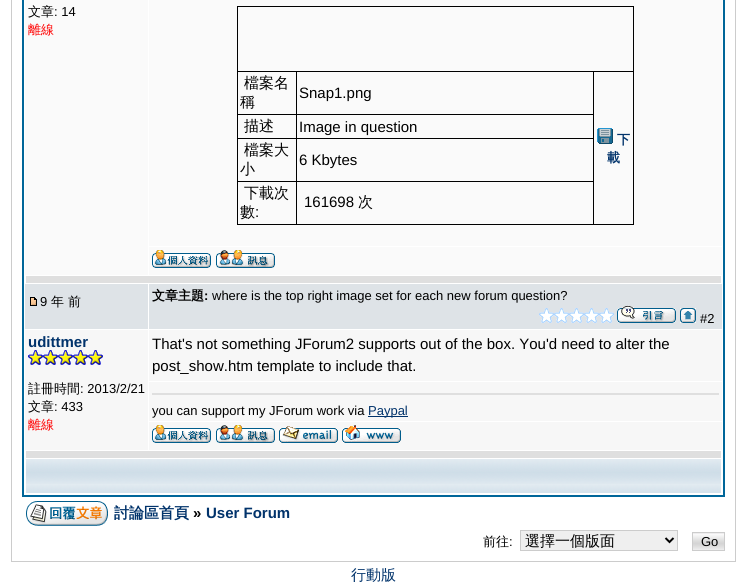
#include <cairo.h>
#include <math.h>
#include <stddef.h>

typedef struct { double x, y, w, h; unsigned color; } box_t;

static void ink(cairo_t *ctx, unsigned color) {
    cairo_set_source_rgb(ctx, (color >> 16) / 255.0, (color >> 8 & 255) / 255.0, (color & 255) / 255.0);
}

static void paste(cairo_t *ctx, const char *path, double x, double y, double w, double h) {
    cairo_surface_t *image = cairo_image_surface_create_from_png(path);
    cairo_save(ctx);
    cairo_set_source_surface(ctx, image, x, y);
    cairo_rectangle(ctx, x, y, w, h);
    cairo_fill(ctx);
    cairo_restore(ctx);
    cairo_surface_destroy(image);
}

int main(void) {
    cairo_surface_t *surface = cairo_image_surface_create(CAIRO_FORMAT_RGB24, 747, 582);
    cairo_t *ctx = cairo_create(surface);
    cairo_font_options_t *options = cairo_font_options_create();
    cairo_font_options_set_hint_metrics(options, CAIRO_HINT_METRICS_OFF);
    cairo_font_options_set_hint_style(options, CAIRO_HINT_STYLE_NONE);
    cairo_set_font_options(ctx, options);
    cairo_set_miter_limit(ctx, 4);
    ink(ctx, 0xFFFFFF);
    cairo_paint(ctx);
    cairo_rectangle(ctx, 11.5, -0.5, 724, 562);
    ink(ctx, 0xCCCCCC);
    cairo_set_line_width(ctx, 1);
    cairo_stroke(ctx);
    cairo_rectangle(ctx, 23, -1, 701, 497);
    ink(ctx, 0x006699);
    cairo_set_line_width(ctx, 2);
    cairo_stroke(ctx);
    ink(ctx, 0xFAFAFA);
    cairo_rectangle(ctx, 25, 0, 123, 275);
    cairo_fill(ctx);
    cairo_select_font_face(ctx, "WenQuanYi Zen Hei Medium", CAIRO_FONT_SLANT_NORMAL, CAIRO_FONT_WEIGHT_NORMAL);
    cairo_set_font_size(ctx, 13);
    ink(ctx, 0x000000);
    cairo_move_to(ctx, 28, 16);
    cairo_show_text(ctx, "文章");
    cairo_select_font_face(ctx, "Liberation Sans", CAIRO_FONT_SLANT_NORMAL, CAIRO_FONT_WEIGHT_NORMAL);
    cairo_move_to(ctx, 54, 16);
    cairo_show_text(ctx, ": 14");
    cairo_select_font_face(ctx, "WenQuanYi Zen Hei Medium", CAIRO_FONT_SLANT_NORMAL, CAIRO_FONT_WEIGHT_NORMAL);
    ink(ctx, 0xFF0000);
    cairo_move_to(ctx, 28, 34);
    cairo_show_text(ctx, "離線");
    {
        static const box_t items[] = {
            {149, 0, 573, 246, 0xFAFAFA},
            {237, 6, 397, 1, 0x000000},
            {633, 6, 1, 219, 0x000000},
            {237, 224, 397, 1, 0x000000},
            {237, 6, 1, 219, 0x000000},
            {296, 114, 298, 1, 0x000000},
            {296, 138, 298, 1, 0x000000},
            {296, 181, 298, 1, 0x000000},
            {296, 181, 1, 44, 0x000000},
            {237, 181, 60, 1, 0x000000},
            {296, 138, 1, 44, 0x000000},
            {237, 138, 60, 1, 0x000000},
            {296, 114, 1, 25, 0x000000},
            {237, 114, 60, 1, 0x000000},
            {296, 71, 1, 44, 0x000000},
            {593, 181, 1, 44, 0x000000},
            {593, 138, 1, 44, 0x000000},
            {593, 71, 1, 68, 0x000000},
            {237, 71, 397, 1, 0x000000},
        };
        for (size_t i = 0; i < sizeof items / sizeof *items; i++) {
            ink(ctx, items[i].color);
            cairo_rectangle(ctx, items[i].x, items[i].y, items[i].w, items[i].h);
            cairo_fill(ctx);
        }
    }
    cairo_set_font_size(ctx, 15);
    cairo_move_to(ctx, 244, 88);
    cairo_show_text(ctx, "檔案名");
    cairo_move_to(ctx, 240, 107);
    cairo_show_text(ctx, "稱");
    cairo_select_font_face(ctx, "Liberation Sans", CAIRO_FONT_SLANT_NORMAL, CAIRO_FONT_WEIGHT_NORMAL);
    cairo_move_to(ctx, 299, 98);
    cairo_show_text(ctx, "Snap1.png");
    paste(ctx, "media/1.png", 597, 128, 16, 16);
    cairo_select_font_face(ctx, "WenQuanYi Zen Hei", CAIRO_FONT_SLANT_NORMAL, CAIRO_FONT_WEIGHT_BOLD);
    cairo_set_font_size(ctx, 13);
    ink(ctx, 0x01336B);
    cairo_move_to(ctx, 617, 144);
    cairo_show_text(ctx, "下");
    cairo_move_to(ctx, 607, 162);
    cairo_show_text(ctx, "載");
    cairo_select_font_face(ctx, "WenQuanYi Zen Hei Medium", CAIRO_FONT_SLANT_NORMAL, CAIRO_FONT_WEIGHT_NORMAL);
    cairo_set_font_size(ctx, 15);
    ink(ctx, 0x000000);
    cairo_move_to(ctx, 244, 131);
    cairo_show_text(ctx, "描述");
    cairo_select_font_face(ctx, "Liberation Sans", CAIRO_FONT_SLANT_NORMAL, CAIRO_FONT_WEIGHT_NORMAL);
    cairo_move_to(ctx, 299, 132);
    cairo_show_text(ctx, "Image in question");
    cairo_select_font_face(ctx, "WenQuanYi Zen Hei Medium", CAIRO_FONT_SLANT_NORMAL, CAIRO_FONT_WEIGHT_NORMAL);
    cairo_move_to(ctx, 244, 155);
    cairo_show_text(ctx, "檔案大");
    cairo_move_to(ctx, 240, 174);
    cairo_show_text(ctx, "小");
    cairo_select_font_face(ctx, "Liberation Sans", CAIRO_FONT_SLANT_NORMAL, CAIRO_FONT_WEIGHT_NORMAL);
    cairo_move_to(ctx, 299, 165);
    cairo_show_text(ctx, "6 Kbytes");
    cairo_select_font_face(ctx, "WenQuanYi Zen Hei Medium", CAIRO_FONT_SLANT_NORMAL, CAIRO_FONT_WEIGHT_NORMAL);
    cairo_move_to(ctx, 244, 198);
    cairo_show_text(ctx, "下載次");
    cairo_move_to(ctx, 240, 217);
    cairo_show_text(ctx, "數");
    cairo_select_font_face(ctx, "Liberation Sans", CAIRO_FONT_SLANT_NORMAL, CAIRO_FONT_WEIGHT_NORMAL);
    cairo_move_to(ctx, 255, 217);
    cairo_show_text(ctx, ":");
    cairo_move_to(ctx, 304, 207);
    cairo_show_text(ctx, "161698");
    cairo_select_font_face(ctx, "WenQuanYi Zen Hei Medium", CAIRO_FONT_SLANT_NORMAL, CAIRO_FONT_WEIGHT_NORMAL);
    cairo_move_to(ctx, 358, 207);
    cairo_show_text(ctx, "次");
    ink(ctx, 0xFAFAFA);
    cairo_rectangle(ctx, 149, 247, 573, 28);
    cairo_fill(ctx);
    paste(ctx, "media/2.png", 152, 250, 59, 18);
    paste(ctx, "media/3.png", 216, 250, 59, 18);
    {
        static const box_t items[] = {
            {25, 276, 697, 7, 0xDFDFDF},
            {721, 276, 1, 7, 0xFFFFFF},
            {25, 276, 1, 7, 0xFFFFFF},
            {25, 284, 123, 45, 0xDEE3E7},
        };
        for (size_t i = 0; i < sizeof items / sizeof *items; i++) {
            ink(ctx, items[i].color);
            cairo_rectangle(ctx, items[i].x, items[i].y, items[i].w, items[i].h);
            cairo_fill(ctx);
        }
    }
    paste(ctx, "media/4.png", 30, 297, 7, 9);
    cairo_select_font_face(ctx, "Liberation Sans", CAIRO_FONT_SLANT_NORMAL, CAIRO_FONT_WEIGHT_NORMAL);
    cairo_set_font_size(ctx, 13);
    ink(ctx, 0x000000);
    cairo_move_to(ctx, 40, 306);
    cairo_show_text(ctx, "9");
    cairo_select_font_face(ctx, "WenQuanYi Zen Hei Medium", CAIRO_FONT_SLANT_NORMAL, CAIRO_FONT_WEIGHT_NORMAL);
    cairo_move_to(ctx, 51, 306);
    cairo_show_text(ctx, "年 前");
    ink(ctx, 0xDEE3E7);
    cairo_rectangle(ctx, 149, 284, 573, 45);
    cairo_fill(ctx);
    cairo_select_font_face(ctx, "WenQuanYi Zen Hei", CAIRO_FONT_SLANT_NORMAL, CAIRO_FONT_WEIGHT_BOLD);
    ink(ctx, 0x000000);
    cairo_move_to(ctx, 152, 300);
    cairo_show_text(ctx, "文章主題");
    cairo_select_font_face(ctx, "Liberation Sans", CAIRO_FONT_SLANT_NORMAL, CAIRO_FONT_WEIGHT_BOLD);
    cairo_move_to(ctx, 204, 300);
    cairo_show_text(ctx, ":");
    cairo_select_font_face(ctx, "Liberation Sans", CAIRO_FONT_SLANT_NORMAL, CAIRO_FONT_WEIGHT_NORMAL);
    cairo_move_to(ctx, 212, 300);
    cairo_show_text(ctx, "where is the top right image set for each new forum question?");
    paste(ctx, "media/5.png", 539, 308, 15, 15);
    paste(ctx, "media/5.png", 554, 308, 15, 15);
    paste(ctx, "media/5.png", 569, 308, 15, 15);
    paste(ctx, "media/5.png", 584, 308, 15, 15);
    paste(ctx, "media/5.png", 599, 308, 15, 15);
    paste(ctx, "media/6.png", 617, 305, 59, 18);
    paste(ctx, "media/7.png", 680, 308, 16, 15);
    cairo_move_to(ctx, 700, 323);
    cairo_show_text(ctx, "#2");
    ink(ctx, 0xF7F7F7);
    cairo_rectangle(ctx, 25, 330, 123, 120);
    cairo_fill(ctx);
    cairo_select_font_face(ctx, "Liberation Sans", CAIRO_FONT_SLANT_NORMAL, CAIRO_FONT_WEIGHT_BOLD);
    cairo_set_font_size(ctx, 15);
    ink(ctx, 0x01336B);
    cairo_move_to(ctx, 28, 347);
    cairo_show_text(ctx, "udittmer");
    paste(ctx, "media/8.png", 28, 350, 15, 15);
    paste(ctx, "media/8.png", 43, 350, 15, 15);
    paste(ctx, "media/8.png", 58, 350, 15, 15);
    paste(ctx, "media/8.png", 73, 350, 15, 15);
    paste(ctx, "media/8.png", 88, 350, 15, 15);
    cairo_select_font_face(ctx, "WenQuanYi Zen Hei Medium", CAIRO_FONT_SLANT_NORMAL, CAIRO_FONT_WEIGHT_NORMAL);
    cairo_set_font_size(ctx, 13);
    ink(ctx, 0x000000);
    cairo_move_to(ctx, 28, 393);
    cairo_show_text(ctx, "註冊時間");
    cairo_select_font_face(ctx, "Liberation Sans", CAIRO_FONT_SLANT_NORMAL, CAIRO_FONT_WEIGHT_NORMAL);
    cairo_move_to(ctx, 80, 393);
    cairo_show_text(ctx, ": 2013/2/21");
    cairo_select_font_face(ctx, "WenQuanYi Zen Hei Medium", CAIRO_FONT_SLANT_NORMAL, CAIRO_FONT_WEIGHT_NORMAL);
    cairo_move_to(ctx, 28, 411);
    cairo_show_text(ctx, "文章");
    cairo_select_font_face(ctx, "Liberation Sans", CAIRO_FONT_SLANT_NORMAL, CAIRO_FONT_WEIGHT_NORMAL);
    cairo_move_to(ctx, 54, 411);
    cairo_show_text(ctx, ": 433");
    cairo_select_font_face(ctx, "WenQuanYi Zen Hei Medium", CAIRO_FONT_SLANT_NORMAL, CAIRO_FONT_WEIGHT_NORMAL);
    ink(ctx, 0xFF0000);
    cairo_move_to(ctx, 28, 429);
    cairo_show_text(ctx, "離線");
    ink(ctx, 0xF7F7F7);
    cairo_rectangle(ctx, 149, 330, 573, 51);
    cairo_fill(ctx);
    cairo_select_font_face(ctx, "Liberation Sans", CAIRO_FONT_SLANT_NORMAL, CAIRO_FONT_WEIGHT_NORMAL);
    cairo_set_font_size(ctx, 15);
    ink(ctx, 0x000000);
    cairo_move_to(ctx, 152, 349);
    cairo_show_text(ctx, "That's not something JForum2 supports out of the box. You'd need to alter the");
    cairo_move_to(ctx, 152, 371);
    cairo_show_text(ctx, "post_show.htm template to include that.");
    ink(ctx, 0xF7F7F7);
    cairo_rectangle(ctx, 149, 382, 573, 39);
    cairo_fill(ctx);
    ink(ctx, 0xDFDFDF);
    cairo_rectangle(ctx, 152, 393, 567, 2);
    cairo_fill(ctx);
    cairo_set_font_size(ctx, 13);
    ink(ctx, 0x000000);
    cairo_move_to(ctx, 152, 415);
    cairo_show_text(ctx, "you can support my JForum work via");
    ink(ctx, 0x01336B);
    cairo_rectangle(ctx, 368, 416, 40, 1);
    cairo_fill(ctx);
    cairo_move_to(ctx, 368, 415);
    cairo_show_text(ctx, "Paypal");
    ink(ctx, 0xF7F7F7);
    cairo_rectangle(ctx, 149, 422, 573, 28);
    cairo_fill(ctx);
    paste(ctx, "media/9.png", 152, 425, 59, 18);
    paste(ctx, "media/10.png", 216, 425, 59, 18);
    paste(ctx, "media/11.png", 279, 426, 59, 17);
    paste(ctx, "media/12.png", 342, 425, 59, 18);
    {
        static const box_t items[] = {
            {25, 451, 697, 7, 0xDFDFDF},
            {721, 451, 1, 7, 0xFFFFFF},
            {25, 451, 1, 7, 0xFFFFFF},
        };
        for (size_t i = 0; i < sizeof items / sizeof *items; i++) {
            ink(ctx, items[i].color);
            cairo_rectangle(ctx, items[i].x, items[i].y, items[i].w, items[i].h);
            cairo_fill(ctx);
        }
    }
    paste(ctx, "media/13.png", 26, 459, 695, 34);
    paste(ctx, "media/14.png", 26, 501, 82, 25);
    cairo_select_font_face(ctx, "WenQuanYi Zen Hei", CAIRO_FONT_SLANT_NORMAL, CAIRO_FONT_WEIGHT_BOLD);
    cairo_set_font_size(ctx, 15);
    ink(ctx, 0x01336B);
    cairo_move_to(ctx, 114, 518);
    cairo_show_text(ctx, "討論區首頁");
    cairo_select_font_face(ctx, "Liberation Sans", CAIRO_FONT_SLANT_NORMAL, CAIRO_FONT_WEIGHT_BOLD);
    ink(ctx, 0x000000);
    cairo_move_to(ctx, 193, 518);
    cairo_show_text(ctx, "»");
    ink(ctx, 0x01336B);
    cairo_move_to(ctx, 206, 518);
    cairo_show_text(ctx, "User Forum");
    cairo_select_font_face(ctx, "WenQuanYi Zen Hei Medium", CAIRO_FONT_SLANT_NORMAL, CAIRO_FONT_WEIGHT_NORMAL);
    cairo_set_font_size(ctx, 13);
    ink(ctx, 0x000000);
    cairo_move_to(ctx, 483, 546);
    cairo_show_text(ctx, "前往");
    cairo_select_font_face(ctx, "Liberation Sans", CAIRO_FONT_SLANT_NORMAL, CAIRO_FONT_WEIGHT_NORMAL);
    cairo_move_to(ctx, 509, 546);
    cairo_show_text(ctx, ":");
    ink(ctx, 0xEFEFEF);
    cairo_rectangle(ctx, 520.5, 530.5, 157, 20);
    cairo_fill_preserve(ctx);
    ink(ctx, 0xCCCCCC);
    cairo_set_line_width(ctx, 1);
    cairo_stroke(ctx);
    cairo_new_path(ctx);
    cairo_move_to(ctx, 665.5, 538);
    cairo_line_to(ctx, 669.5, 542);
    cairo_line_to(ctx, 673.5, 538);
    ink(ctx, 0x000000);
    cairo_set_line_width(ctx, 2);
    cairo_stroke(ctx);
    cairo_select_font_face(ctx, "WenQuanYi Zen Hei Medium", CAIRO_FONT_SLANT_NORMAL, CAIRO_FONT_WEIGHT_NORMAL);
    cairo_set_font_size(ctx, 15);
    cairo_move_to(ctx, 525, 546);
    cairo_show_text(ctx, "選擇一個版面");
    paste(ctx, "media/15.png", 693, 533, 31, 17);
    cairo_rectangle(ctx, 692.5, 532.5, 32, 18);
    ink(ctx, 0xCCCCCC);
    cairo_set_line_width(ctx, 1);
    cairo_stroke(ctx);
    cairo_select_font_face(ctx, "Liberation Sans", CAIRO_FONT_SLANT_NORMAL, CAIRO_FONT_WEIGHT_NORMAL);
    cairo_set_font_size(ctx, 13);
    ink(ctx, 0x000000);
    cairo_move_to(ctx, 701, 546);
    cairo_show_text(ctx, "Go");
    cairo_select_font_face(ctx, "WenQuanYi Zen Hei Medium", CAIRO_FONT_SLANT_NORMAL, CAIRO_FONT_WEIGHT_NORMAL);
    cairo_set_font_size(ctx, 15);
    ink(ctx, 0x01336B);
    cairo_move_to(ctx, 351, 580);
    cairo_show_text(ctx, "行動版");
    cairo_surface_write_to_png(surface, "image.png");
    cairo_font_options_destroy(options);
    cairo_destroy(ctx);
    cairo_surface_destroy(surface);
    return 0;
}
